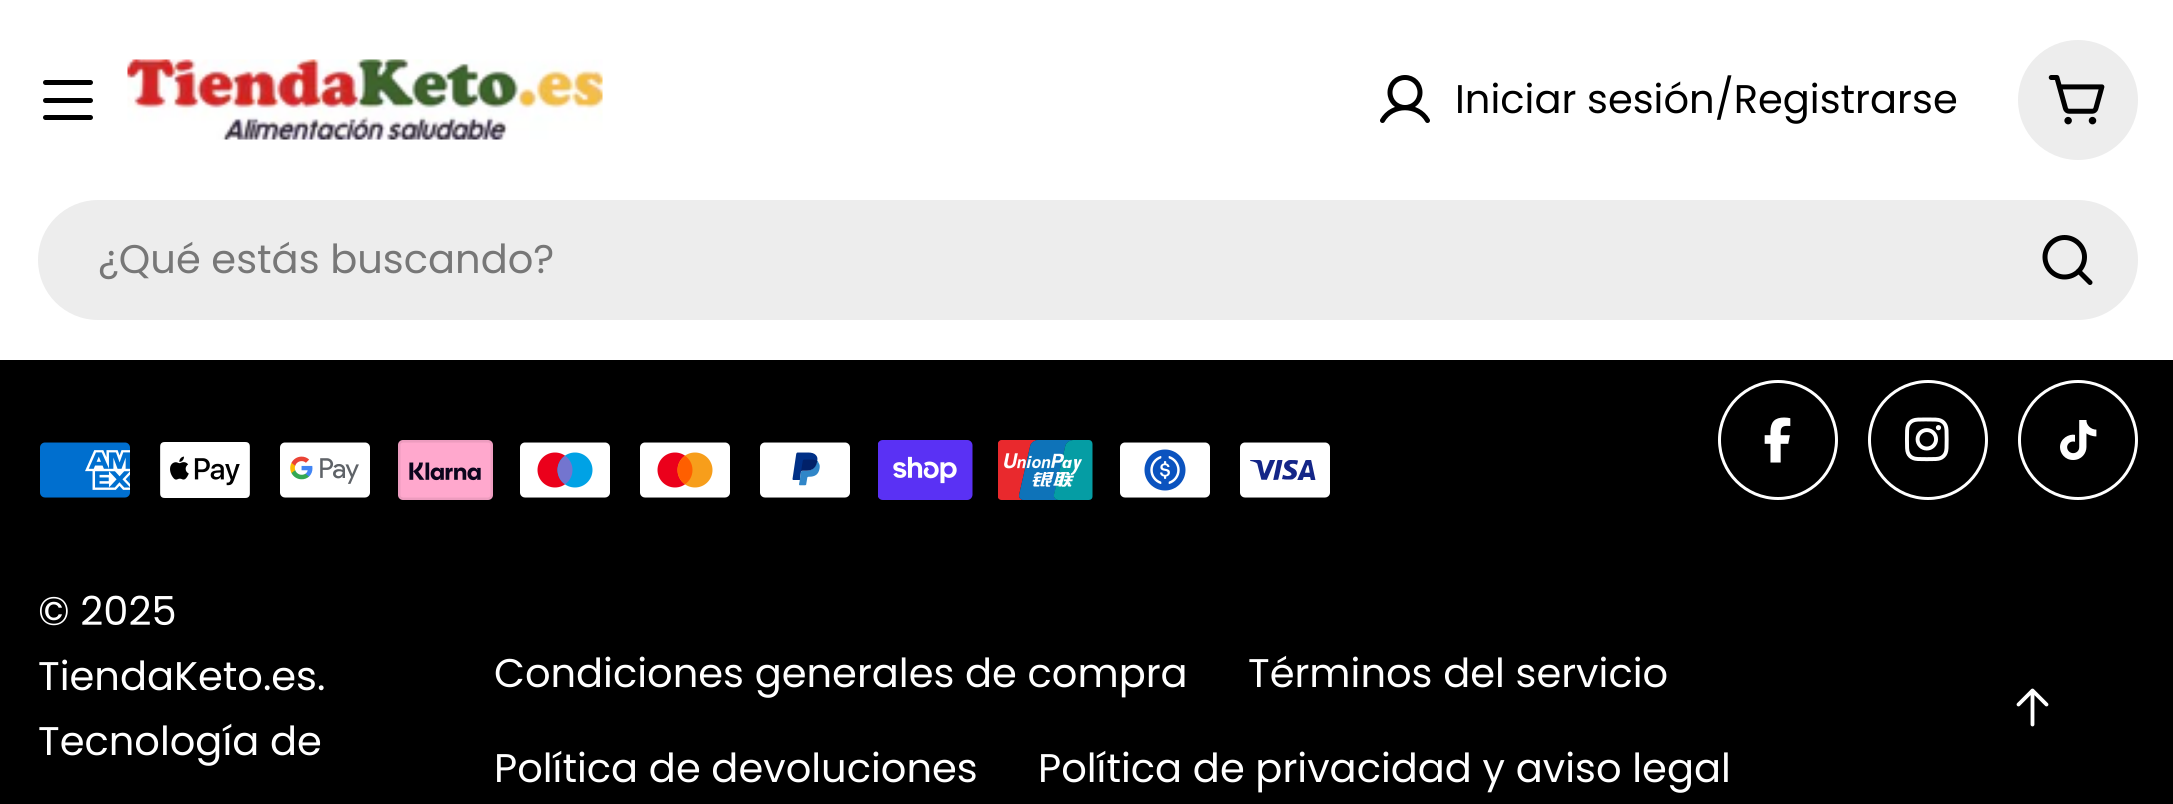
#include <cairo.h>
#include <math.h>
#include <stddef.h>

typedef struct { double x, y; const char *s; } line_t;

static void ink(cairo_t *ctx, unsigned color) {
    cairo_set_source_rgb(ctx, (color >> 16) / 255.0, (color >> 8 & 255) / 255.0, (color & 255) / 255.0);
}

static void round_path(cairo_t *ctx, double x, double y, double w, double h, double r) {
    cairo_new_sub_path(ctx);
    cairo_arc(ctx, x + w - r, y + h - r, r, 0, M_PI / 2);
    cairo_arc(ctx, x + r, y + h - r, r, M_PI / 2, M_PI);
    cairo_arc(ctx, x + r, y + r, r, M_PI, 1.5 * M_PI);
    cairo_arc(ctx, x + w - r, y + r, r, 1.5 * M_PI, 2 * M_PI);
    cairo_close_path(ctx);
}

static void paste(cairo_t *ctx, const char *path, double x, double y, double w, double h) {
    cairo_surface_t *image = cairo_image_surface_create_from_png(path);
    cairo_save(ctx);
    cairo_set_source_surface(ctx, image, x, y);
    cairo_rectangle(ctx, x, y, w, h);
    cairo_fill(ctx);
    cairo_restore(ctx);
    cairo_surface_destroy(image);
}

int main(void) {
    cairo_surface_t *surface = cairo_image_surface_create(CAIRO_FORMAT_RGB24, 2173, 804);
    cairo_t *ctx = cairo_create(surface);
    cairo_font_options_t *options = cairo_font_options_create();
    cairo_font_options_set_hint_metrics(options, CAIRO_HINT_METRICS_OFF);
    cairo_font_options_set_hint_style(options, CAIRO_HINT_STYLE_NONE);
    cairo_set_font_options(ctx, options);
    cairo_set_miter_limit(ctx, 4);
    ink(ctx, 0x000000);
    cairo_paint(ctx);
    ink(ctx, 0xFFFFFF);
    cairo_rectangle(ctx, 0, 0, 2173, 360);
    cairo_fill(ctx);
    ink(ctx, 0x000000);
    round_path(ctx, 43, 98, 50, 5, 2.5);
    cairo_fill(ctx);
    round_path(ctx, 43, 80, 50, 5, 2.5);
    cairo_fill(ctx);
    round_path(ctx, 43, 115, 50, 5, 2.5);
    cairo_fill(ctx);
    paste(ctx, "media/1.png", 127, 59, 476, 81);
    cairo_new_path(ctx);
    cairo_move_to(ctx, 1405, 107.5);
    cairo_curve_to(ctx, 1413.5, 107.5, 1420, 101, 1420, 92.5);
    cairo_curve_to(ctx, 1420, 84, 1413.5, 77.5, 1405, 77.5);
    cairo_curve_to(ctx, 1396.5, 77.5, 1390, 84, 1390, 92.5);
    cairo_curve_to(ctx, 1390, 101, 1396.5, 107.5, 1405, 107.5);
    cairo_close_path(ctx);
    cairo_move_to(ctx, 1382.5, 120.5);
    cairo_curve_to(ctx, 1392, 103.5, 1418, 103.5, 1427.5, 120.5);
    cairo_set_line_width(ctx, 5);
    cairo_set_line_cap(ctx, CAIRO_LINE_CAP_ROUND);
    cairo_set_line_join(ctx, CAIRO_LINE_JOIN_ROUND);
    cairo_stroke(ctx);
    cairo_select_font_face(ctx, "Poppins", CAIRO_FONT_SLANT_NORMAL, CAIRO_FONT_WEIGHT_NORMAL);
    cairo_set_font_size(ctx, 40);
    cairo_move_to(ctx, 1455, 113);
    cairo_show_text(ctx, "Iniciar sesión/Registrarse");
    ink(ctx, 0xEDEDED);
    cairo_new_path(ctx);
    cairo_arc(ctx, 2078, 100, 60, 0, 2 * M_PI);
    cairo_fill(ctx);
    paste(ctx, "media/2.png", 2048, 75, 57, 50);
    round_path(ctx, 38, 200, 2100, 120, 60);
    cairo_fill(ctx);
    ink(ctx, 0x777777);
    cairo_move_to(ctx, 98, 273);
    cairo_show_text(ctx, "¿Qué estás buscando?");
    cairo_new_path(ctx);
    cairo_move_to(ctx, 2064.5, 277);
    cairo_curve_to(ctx, 2075.5, 277, 2084.5, 268, 2084.5, 257);
    cairo_curve_to(ctx, 2084.5, 246.5, 2075.5, 237.5, 2064.5, 237.5);
    cairo_curve_to(ctx, 2054, 237.5, 2045, 246.5, 2045, 257);
    cairo_curve_to(ctx, 2045, 268, 2054, 277, 2064.5, 277);
    cairo_close_path(ctx);
    cairo_move_to(ctx, 2078.5, 271);
    cairo_line_to(ctx, 2090, 282.5);
    ink(ctx, 0x000000);
    cairo_stroke(ctx);
    paste(ctx, "media/3.png", 40, 442, 90, 56);
    paste(ctx, "media/4.png", 160, 442, 90, 56);
    paste(ctx, "media/5.png", 280, 442, 90, 56);
    paste(ctx, "media/6.png", 398, 440, 95, 60);
    paste(ctx, "media/7.png", 520, 442, 90, 56);
    paste(ctx, "media/8.png", 640, 442, 90, 56);
    paste(ctx, "media/9.png", 760, 442, 90, 56);
    paste(ctx, "media/10.png", 878, 440, 95, 60);
    paste(ctx, "media/11.png", 998, 440, 95, 60);
    paste(ctx, "media/12.png", 1120, 442, 90, 56);
    paste(ctx, "media/13.png", 1240, 442, 90, 56);
    cairo_arc(ctx, 1778, 440, 58.5, 0, 2 * M_PI);
    ink(ctx, 0xFFFFFF);
    cairo_set_line_width(ctx, 3);
    cairo_set_line_cap(ctx, CAIRO_LINE_CAP_BUTT);
    cairo_set_line_join(ctx, CAIRO_LINE_JOIN_MITER);
    cairo_stroke(ctx);
    paste(ctx, "media/14.png", 1764, 417, 27, 46);
    cairo_arc(ctx, 1928, 440, 58.5, 0, 2 * M_PI);
    cairo_stroke(ctx);
    paste(ctx, "media/15.png", 1905, 417, 44, 45);
    cairo_arc(ctx, 2078, 440, 58.5, 0, 2 * M_PI);
    cairo_stroke(ctx);
    paste(ctx, "media/16.png", 2060, 420, 37, 40);
    {
        static const line_t items[] = {
            {38, 625, "© 2025"},
            {38, 690, "TiendaKeto.es."},
            {38, 755, "Tecnología de"},
            {494, 687, "Condiciones generales de compra"},
            {1248, 687, "Términos del servicio"},
            {494, 782, "Política de devoluciones"},
            {1038, 782, "Política de privacidad y aviso legal"},
        };
        for (size_t i = 0; i < sizeof items / sizeof *items; i++) {
            cairo_move_to(ctx, items[i].x, items[i].y);
            cairo_show_text(ctx, items[i].s);
        }
    }
    cairo_new_path(ctx);
    cairo_move_to(ctx, 2032.5, 724.5);
    cairo_line_to(ctx, 2032.5, 690.5);
    cairo_move_to(ctx, 2018.5, 704.5);
    cairo_line_to(ctx, 2032.5, 690.5);
    cairo_line_to(ctx, 2046.5, 704.5);
    cairo_set_line_width(ctx, 3.8);
    cairo_set_line_cap(ctx, CAIRO_LINE_CAP_ROUND);
    cairo_set_line_join(ctx, CAIRO_LINE_JOIN_ROUND);
    cairo_stroke(ctx);
    cairo_surface_write_to_png(surface, "image.png");
    cairo_font_options_destroy(options);
    cairo_destroy(ctx);
    cairo_surface_destroy(surface);
    return 0;
}
